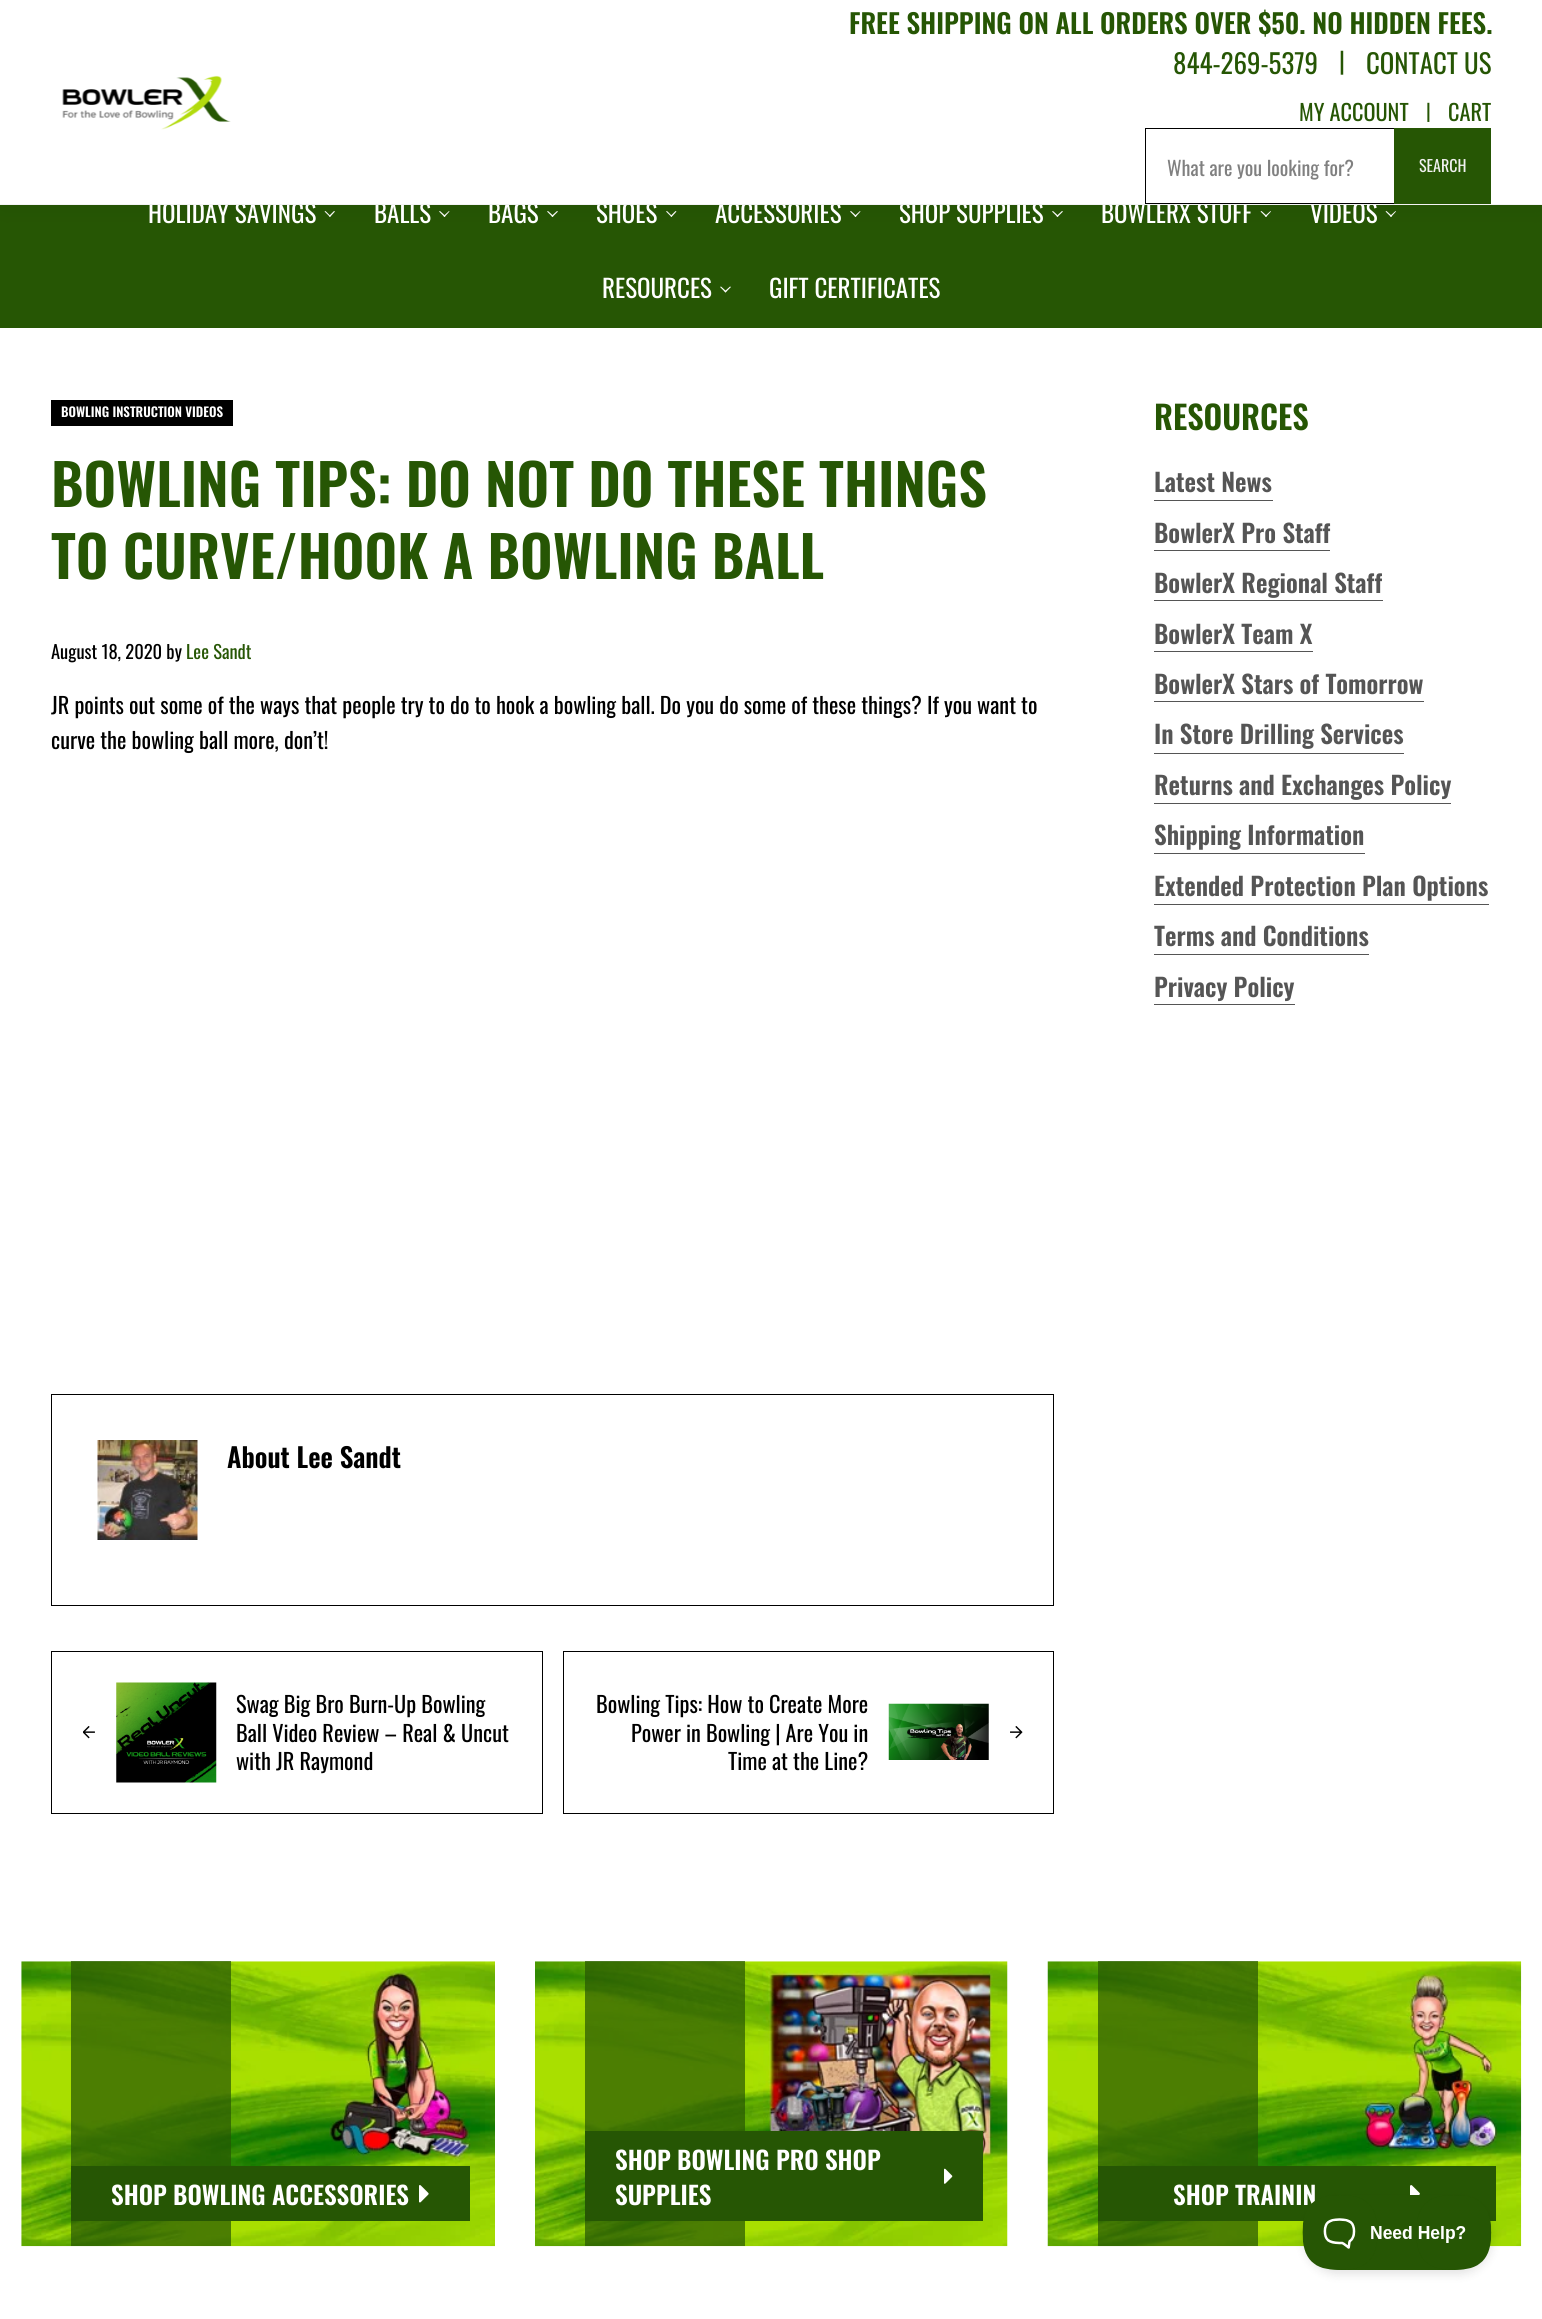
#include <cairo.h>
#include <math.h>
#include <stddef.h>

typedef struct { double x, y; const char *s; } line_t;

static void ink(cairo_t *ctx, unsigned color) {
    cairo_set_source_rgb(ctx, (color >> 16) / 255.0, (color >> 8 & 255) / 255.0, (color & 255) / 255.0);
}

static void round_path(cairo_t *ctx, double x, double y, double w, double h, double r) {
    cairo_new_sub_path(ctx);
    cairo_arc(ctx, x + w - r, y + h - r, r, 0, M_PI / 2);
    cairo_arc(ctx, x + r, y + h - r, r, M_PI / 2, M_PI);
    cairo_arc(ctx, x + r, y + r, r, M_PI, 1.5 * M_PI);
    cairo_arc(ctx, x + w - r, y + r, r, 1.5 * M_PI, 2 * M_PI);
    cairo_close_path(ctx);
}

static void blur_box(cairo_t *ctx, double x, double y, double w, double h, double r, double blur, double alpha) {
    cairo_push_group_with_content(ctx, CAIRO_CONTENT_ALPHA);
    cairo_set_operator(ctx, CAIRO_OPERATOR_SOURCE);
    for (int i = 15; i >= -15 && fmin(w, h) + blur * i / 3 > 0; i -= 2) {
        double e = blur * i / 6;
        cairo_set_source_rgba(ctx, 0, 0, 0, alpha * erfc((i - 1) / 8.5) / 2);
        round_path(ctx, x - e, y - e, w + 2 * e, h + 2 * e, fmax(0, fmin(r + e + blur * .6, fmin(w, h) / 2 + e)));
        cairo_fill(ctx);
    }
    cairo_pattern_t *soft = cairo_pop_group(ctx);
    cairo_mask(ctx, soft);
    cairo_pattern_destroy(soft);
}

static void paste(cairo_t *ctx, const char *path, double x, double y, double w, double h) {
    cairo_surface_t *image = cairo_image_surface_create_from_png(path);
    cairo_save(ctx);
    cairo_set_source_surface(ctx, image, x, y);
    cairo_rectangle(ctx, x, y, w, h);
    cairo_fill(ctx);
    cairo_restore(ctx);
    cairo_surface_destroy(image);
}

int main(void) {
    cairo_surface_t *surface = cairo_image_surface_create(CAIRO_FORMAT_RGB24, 1542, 2319);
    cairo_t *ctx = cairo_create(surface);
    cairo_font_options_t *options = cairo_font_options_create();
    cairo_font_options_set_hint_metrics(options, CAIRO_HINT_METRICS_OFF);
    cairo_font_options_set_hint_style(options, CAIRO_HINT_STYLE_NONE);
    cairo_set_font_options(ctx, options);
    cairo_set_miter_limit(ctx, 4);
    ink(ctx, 0xFFFFFF);
    cairo_paint(ctx);
    ink(ctx, 0x265604);
    cairo_rectangle(ctx, 0, 205, 1542, 123);
    cairo_fill(ctx);
    ink(ctx, 0xFFFFFF);
    cairo_new_path(ctx);
    cairo_move_to(ctx, 334, 211);
    cairo_line_to(ctx, 335, 211.5);
    cairo_line_to(ctx, 330, 217);
    cairo_line_to(ctx, 329, 216);
    cairo_close_path(ctx);
    cairo_fill(ctx);
    cairo_new_path(ctx);
    cairo_move_to(ctx, 325.5, 211);
    cairo_line_to(ctx, 330.5, 216);
    cairo_line_to(ctx, 330, 217);
    cairo_line_to(ctx, 324.5, 211.5);
    cairo_close_path(ctx);
    cairo_fill(ctx);
    cairo_new_path(ctx);
    cairo_move_to(ctx, 449, 211);
    cairo_line_to(ctx, 449.5, 211.5);
    cairo_line_to(ctx, 444.5, 217);
    cairo_line_to(ctx, 443.5, 216);
    cairo_close_path(ctx);
    cairo_fill(ctx);
    cairo_new_path(ctx);
    cairo_move_to(ctx, 440, 211);
    cairo_line_to(ctx, 445.5, 216);
    cairo_line_to(ctx, 444.5, 217);
    cairo_line_to(ctx, 439, 211.5);
    cairo_close_path(ctx);
    cairo_fill(ctx);
    cairo_new_path(ctx);
    cairo_move_to(ctx, 557, 211);
    cairo_line_to(ctx, 558, 211.5);
    cairo_line_to(ctx, 552.5, 217);
    cairo_line_to(ctx, 551.5, 216);
    cairo_close_path(ctx);
    cairo_fill(ctx);
    cairo_new_path(ctx);
    cairo_move_to(ctx, 548, 211);
    cairo_line_to(ctx, 553.5, 216);
    cairo_line_to(ctx, 552.5, 217);
    cairo_line_to(ctx, 547, 211.5);
    cairo_close_path(ctx);
    cairo_fill(ctx);
    cairo_new_path(ctx);
    cairo_move_to(ctx, 675.5, 211);
    cairo_line_to(ctx, 676.5, 211.5);
    cairo_line_to(ctx, 671.5, 217);
    cairo_line_to(ctx, 670.5, 216);
    cairo_close_path(ctx);
    cairo_fill(ctx);
    cairo_new_path(ctx);
    cairo_move_to(ctx, 667, 211);
    cairo_line_to(ctx, 672, 216);
    cairo_line_to(ctx, 671.5, 217);
    cairo_line_to(ctx, 666, 211.5);
    cairo_close_path(ctx);
    cairo_fill(ctx);
    cairo_new_path(ctx);
    cairo_move_to(ctx, 860, 211);
    cairo_line_to(ctx, 860.5, 211.5);
    cairo_line_to(ctx, 855.5, 217);
    cairo_line_to(ctx, 854.5, 216);
    cairo_close_path(ctx);
    cairo_fill(ctx);
    cairo_new_path(ctx);
    cairo_move_to(ctx, 851, 211);
    cairo_line_to(ctx, 856.5, 216);
    cairo_line_to(ctx, 855.5, 217);
    cairo_line_to(ctx, 850, 211.5);
    cairo_close_path(ctx);
    cairo_fill(ctx);
    cairo_new_path(ctx);
    cairo_move_to(ctx, 1062, 211);
    cairo_line_to(ctx, 1063, 211.5);
    cairo_line_to(ctx, 1057.5, 217);
    cairo_line_to(ctx, 1056.5, 216);
    cairo_close_path(ctx);
    cairo_fill(ctx);
    cairo_new_path(ctx);
    cairo_move_to(ctx, 1053, 211);
    cairo_line_to(ctx, 1058.5, 216);
    cairo_line_to(ctx, 1057.5, 217);
    cairo_line_to(ctx, 1052, 211.5);
    cairo_close_path(ctx);
    cairo_fill(ctx);
    cairo_new_path(ctx);
    cairo_move_to(ctx, 1270.5, 211);
    cairo_line_to(ctx, 1271, 211.5);
    cairo_line_to(ctx, 1266, 217);
    cairo_line_to(ctx, 1265, 216);
    cairo_close_path(ctx);
    cairo_fill(ctx);
    cairo_new_path(ctx);
    cairo_move_to(ctx, 1261.5, 211);
    cairo_line_to(ctx, 1267, 216);
    cairo_line_to(ctx, 1266, 217);
    cairo_line_to(ctx, 1260.5, 211.5);
    cairo_close_path(ctx);
    cairo_fill(ctx);
    cairo_new_path(ctx);
    cairo_move_to(ctx, 1395.5, 211);
    cairo_line_to(ctx, 1396, 211.5);
    cairo_line_to(ctx, 1391, 217);
    cairo_line_to(ctx, 1390, 216);
    cairo_close_path(ctx);
    cairo_fill(ctx);
    cairo_new_path(ctx);
    cairo_move_to(ctx, 1386.5, 211);
    cairo_line_to(ctx, 1392, 216);
    cairo_line_to(ctx, 1391, 217);
    cairo_line_to(ctx, 1385.5, 211.5);
    cairo_close_path(ctx);
    cairo_fill(ctx);
    ink(ctx, 0x000000);
    blur_box(ctx, 0, 0, 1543, 205, 0, 15, 0.07);
    ink(ctx, 0xFFFFFF);
    cairo_rectangle(ctx, 0, 0, 1542, 204);
    cairo_fill(ctx);
    cairo_select_font_face(ctx, "Oswald", CAIRO_FONT_SLANT_NORMAL, CAIRO_FONT_WEIGHT_NORMAL);
    cairo_set_font_size(ctx, 25);
    {
        static const line_t items[] = {
            {148, 223, "HOLIDAY SAVINGS"},
            {374, 223, "BALLS"},
            {488, 223, "BAGS"},
            {596, 223, "SHOES"},
            {715, 223, "ACCESSORIES"},
            {899, 223, "SHOP SUPPLIES"},
            {1101, 223, "BOWLERX STUFF"},
            {1310, 223, "VIDEOS"},
        };
        for (size_t i = 0; i < sizeof items / sizeof *items; i++) {
            cairo_move_to(ctx, items[i].x, items[i].y);
            cairo_show_text(ctx, items[i].s);
        }
    }
    ink(ctx, 0xF3F3F4);
    cairo_rectangle(ctx, 0, 204, 1542, 1);
    cairo_fill(ctx);
    paste(ctx, "media/1.png", 62, 75, 169, 55);
    cairo_select_font_face(ctx, "Oswald SemiBold", CAIRO_FONT_SLANT_NORMAL, CAIRO_FONT_WEIGHT_NORMAL);
    cairo_set_font_size(ctx, 26.9);
    ink(ctx, 0x265604);
    cairo_move_to(ctx, 849, 34);
    cairo_show_text(ctx, "FREE SHIPPING ON ALL ORDERS OVER $50. NO HIDDEN FEES.");
    cairo_select_font_face(ctx, "Oswald", CAIRO_FONT_SLANT_NORMAL, CAIRO_FONT_WEIGHT_NORMAL);
    cairo_move_to(ctx, 1173, 74);
    cairo_show_text(ctx, "844-269-5379");
    cairo_set_font_size(ctx, 25);
    cairo_move_to(ctx, 1339, 71);
    cairo_show_text(ctx, "|");
    cairo_set_font_size(ctx, 26.9);
    cairo_move_to(ctx, 1366, 74);
    cairo_show_text(ctx, "CONTACT US");
    cairo_set_font_size(ctx, 22.3);
    cairo_move_to(ctx, 1299, 121);
    cairo_show_text(ctx, "MY ACCOUNT");
    cairo_set_font_size(ctx, 20);
    cairo_move_to(ctx, 1426, 119);
    cairo_show_text(ctx, "|");
    cairo_set_font_size(ctx, 22.3);
    cairo_move_to(ctx, 1448, 121);
    cairo_show_text(ctx, "CART");
    cairo_rectangle(ctx, 1145.5, 128.5, 258, 75);
    ink(ctx, 0x000000);
    cairo_set_line_width(ctx, 1);
    cairo_stroke(ctx);
    cairo_set_font_size(ctx, 20);
    ink(ctx, 0x808080);
    cairo_move_to(ctx, 1167, 176);
    cairo_show_text(ctx, "What are you looking for?");
    ink(ctx, 0x265604);
    cairo_rectangle(ctx, 1394, 128, 97, 76);
    cairo_fill(ctx);
    cairo_set_font_size(ctx, 16);
    ink(ctx, 0xF0F0F0);
    cairo_move_to(ctx, 1419, 172);
    cairo_show_text(ctx, "SEARCH");
    cairo_set_font_size(ctx, 25);
    ink(ctx, 0xFFFFFF);
    cairo_move_to(ctx, 602, 298);
    cairo_show_text(ctx, "RESOURCES");
    cairo_new_path(ctx);
    cairo_move_to(ctx, 730, 286.5);
    cairo_line_to(ctx, 731, 287);
    cairo_line_to(ctx, 725.5, 292.5);
    cairo_line_to(ctx, 724.5, 291.5);
    cairo_close_path(ctx);
    cairo_fill(ctx);
    cairo_new_path(ctx);
    cairo_move_to(ctx, 721, 286.5);
    cairo_line_to(ctx, 726.5, 291.5);
    cairo_line_to(ctx, 725.5, 292.5);
    cairo_line_to(ctx, 720, 287);
    cairo_close_path(ctx);
    cairo_fill(ctx);
    cairo_move_to(ctx, 769, 298);
    cairo_show_text(ctx, "GIFT CERTIFICATES");
    ink(ctx, 0x000000);
    cairo_rectangle(ctx, 51, 400, 182, 26);
    cairo_fill(ctx);
    cairo_select_font_face(ctx, "Oswald SemiBold", CAIRO_FONT_SLANT_NORMAL, CAIRO_FONT_WEIGHT_NORMAL);
    cairo_set_font_size(ctx, 13);
    ink(ctx, 0xFFFFFF);
    cairo_move_to(ctx, 61, 417);
    cairo_show_text(ctx, "BOWLING INSTRUCTION VIDEOS");
    cairo_set_font_size(ctx, 56.75);
    ink(ctx, 0x265604);
    cairo_move_to(ctx, 51, 507);
    cairo_show_text(ctx, "BOWLING TIPS: DO NOT DO THESE THINGS");
    cairo_move_to(ctx, 51, 579);
    cairo_show_text(ctx, "TO CURVE/HOOK A BOWLING BALL");
    cairo_select_font_face(ctx, "Oswald", CAIRO_FONT_SLANT_NORMAL, CAIRO_FONT_WEIGHT_NORMAL);
    cairo_set_font_size(ctx, 18.5);
    ink(ctx, 0x000000);
    cairo_move_to(ctx, 51, 659);
    cairo_show_text(ctx, "August 18, 2020 by");
    ink(ctx, 0x265604);
    cairo_move_to(ctx, 186, 659);
    cairo_show_text(ctx, "Lee Sandt");
    cairo_set_font_size(ctx, 22.3);
    ink(ctx, 0x000000);
    cairo_move_to(ctx, 51, 714);
    cairo_show_text(ctx, "JR points out some of the ways that people try to do to hook a bowling ball. Do you do some of these things? If you want to");
    cairo_move_to(ctx, 51, 749);
    cairo_show_text(ctx, "curve the bowling ball more, don’t!");
    cairo_rectangle(ctx, 51.5, 1394.5, 1002, 211);
    cairo_stroke(ctx);
    paste(ctx, "media/2.png", 97, 1440, 101, 100);
    cairo_select_font_face(ctx, "Oswald SemiBold", CAIRO_FONT_SLANT_NORMAL, CAIRO_FONT_WEIGHT_NORMAL);
    cairo_set_font_size(ctx, 26.9);
    cairo_move_to(ctx, 227, 1468);
    cairo_show_text(ctx, "About Lee Sandt");
    cairo_rectangle(ctx, 51.5, 1651.5, 491, 162);
    cairo_stroke(ctx);
    paste(ctx, "media/3.png", 116, 1682, 101, 101);
    cairo_select_font_face(ctx, "Oswald", CAIRO_FONT_SLANT_NORMAL, CAIRO_FONT_WEIGHT_NORMAL);
    cairo_set_font_size(ctx, 22.3);
    cairo_move_to(ctx, 236, 1713);
    cairo_show_text(ctx, "Swag Big Bro Burn-Up Bowling");
    paste(ctx, "media/4.png", 83, 1726, 12, 13);
    cairo_move_to(ctx, 236, 1742);
    cairo_show_text(ctx, "Ball Video Review – Real & Uncut");
    cairo_move_to(ctx, 236, 1770);
    cairo_show_text(ctx, "with JR Raymond");
    cairo_rectangle(ctx, 563.5, 1651.5, 490, 162);
    cairo_stroke(ctx);
    cairo_move_to(ctx, 596, 1713);
    cairo_show_text(ctx, "Bowling Tips: How to Create More");
    paste(ctx, "media/5.png", 888, 1703, 101, 57);
    cairo_move_to(ctx, 631, 1742);
    cairo_show_text(ctx, "Power in Bowling | Are You in");
    paste(ctx, "media/6.png", 1010, 1726, 13, 13);
    cairo_move_to(ctx, 728, 1770);
    cairo_show_text(ctx, "Time at the Line?");
    cairo_select_font_face(ctx, "Oswald SemiBold", CAIRO_FONT_SLANT_NORMAL, CAIRO_FONT_WEIGHT_NORMAL);
    cairo_set_font_size(ctx, 32.5);
    ink(ctx, 0x265604);
    cairo_move_to(ctx, 1154, 430);
    cairo_show_text(ctx, "RESOURCES");
    cairo_set_font_size(ctx, 25);
    ink(ctx, 0x555555);
    cairo_move_to(ctx, 1154, 492);
    cairo_show_text(ctx, "Latest News");
    cairo_rectangle(ctx, 1154, 500, 119, 1);
    cairo_fill(ctx);
    cairo_move_to(ctx, 1154, 543);
    cairo_show_text(ctx, "BowlerX Pro Staff");
    cairo_rectangle(ctx, 1154, 550, 176, 1);
    cairo_fill(ctx);
    cairo_move_to(ctx, 1154, 593);
    cairo_show_text(ctx, "BowlerX Regional Staff");
    cairo_rectangle(ctx, 1154, 600, 229, 1);
    cairo_fill(ctx);
    cairo_move_to(ctx, 1154, 644);
    cairo_show_text(ctx, "BowlerX Team X");
    cairo_rectangle(ctx, 1154, 651, 159, 1);
    cairo_fill(ctx);
    cairo_move_to(ctx, 1154, 694);
    cairo_show_text(ctx, "BowlerX Stars of Tomorrow");
    cairo_rectangle(ctx, 1154, 701, 270, 1);
    cairo_fill(ctx);
    cairo_move_to(ctx, 1154, 744);
    cairo_show_text(ctx, "In Store Drilling Services");
    cairo_rectangle(ctx, 1154, 753, 250, 1);
    cairo_fill(ctx);
    cairo_move_to(ctx, 1154, 795);
    cairo_show_text(ctx, "Returns and Exchanges Policy");
    cairo_rectangle(ctx, 1154, 803, 297, 1);
    cairo_fill(ctx);
    cairo_move_to(ctx, 1154, 845);
    cairo_show_text(ctx, "Shipping Information");
    cairo_rectangle(ctx, 1154, 853, 211, 1);
    cairo_fill(ctx);
    cairo_move_to(ctx, 1154, 896);
    cairo_show_text(ctx, "Extended Protection Plan Options");
    cairo_rectangle(ctx, 1154, 904, 335, 1);
    cairo_fill(ctx);
    cairo_move_to(ctx, 1154, 946);
    cairo_show_text(ctx, "Terms and Conditions");
    cairo_rectangle(ctx, 1154, 954, 215, 1);
    cairo_fill(ctx);
    cairo_move_to(ctx, 1154, 997);
    cairo_show_text(ctx, "Privacy Policy");
    cairo_rectangle(ctx, 1154, 1004, 141, 1);
    cairo_fill(ctx);
    paste(ctx, "media/7.png", 21, 1961, 474, 286);
    cairo_set_source_rgba(ctx, 0.149, 0.337, 0.016, 0.7);
    cairo_rectangle(ctx, 71, 1961, 160, 285);
    cairo_fill(ctx);
    ink(ctx, 0x265604);
    cairo_rectangle(ctx, 71, 2166, 399, 55);
    cairo_fill(ctx);
    ink(ctx, 0xFFFFFF);
    cairo_move_to(ctx, 111, 2205);
    cairo_show_text(ctx, "SHOP BOWLING ACCESSORIES");
    paste(ctx, "media/8.png", 419, 2185, 10, 18);
    paste(ctx, "media/9.png", 535, 1961, 473, 286);
    cairo_set_source_rgba(ctx, 0.149, 0.337, 0.016, 0.7);
    cairo_rectangle(ctx, 585, 1961, 160, 285);
    cairo_fill(ctx);
    ink(ctx, 0x265604);
    cairo_rectangle(ctx, 585, 2131, 398, 90);
    cairo_fill(ctx);
    ink(ctx, 0xFFFFFF);
    cairo_move_to(ctx, 615, 2170);
    cairo_show_text(ctx, "SHOP BOWLING PRO SHOP");
    paste(ctx, "media/10.png", 944, 2168, 9, 16);
    cairo_move_to(ctx, 615, 2205);
    cairo_show_text(ctx, "SUPPLIES");
    paste(ctx, "media/11.png", 1047, 1961, 475, 286);
    cairo_set_source_rgba(ctx, 0.149, 0.337, 0.016, 0.7);
    cairo_rectangle(ctx, 1098, 1961, 160, 285);
    cairo_fill(ctx);
    ink(ctx, 0x265604);
    cairo_rectangle(ctx, 1098, 2166, 398, 55);
    cairo_fill(ctx);
    ink(ctx, 0xFFFFFF);
    cairo_move_to(ctx, 1173, 2205);
    cairo_show_text(ctx, "SHOP TRAININ");
    paste(ctx, "media/12.png", 1410, 2185, 10, 10);
    ink(ctx, 0x000000);
    blur_box(ctx, 1303, 2200, 190, 75, 37.5, 4.5, 0.1);
    paste(ctx, "media/13.png", 1302, 2195, 190, 75);
    cairo_surface_write_to_png(surface, "image.png");
    cairo_font_options_destroy(options);
    cairo_destroy(ctx);
    cairo_surface_destroy(surface);
    return 0;
}
